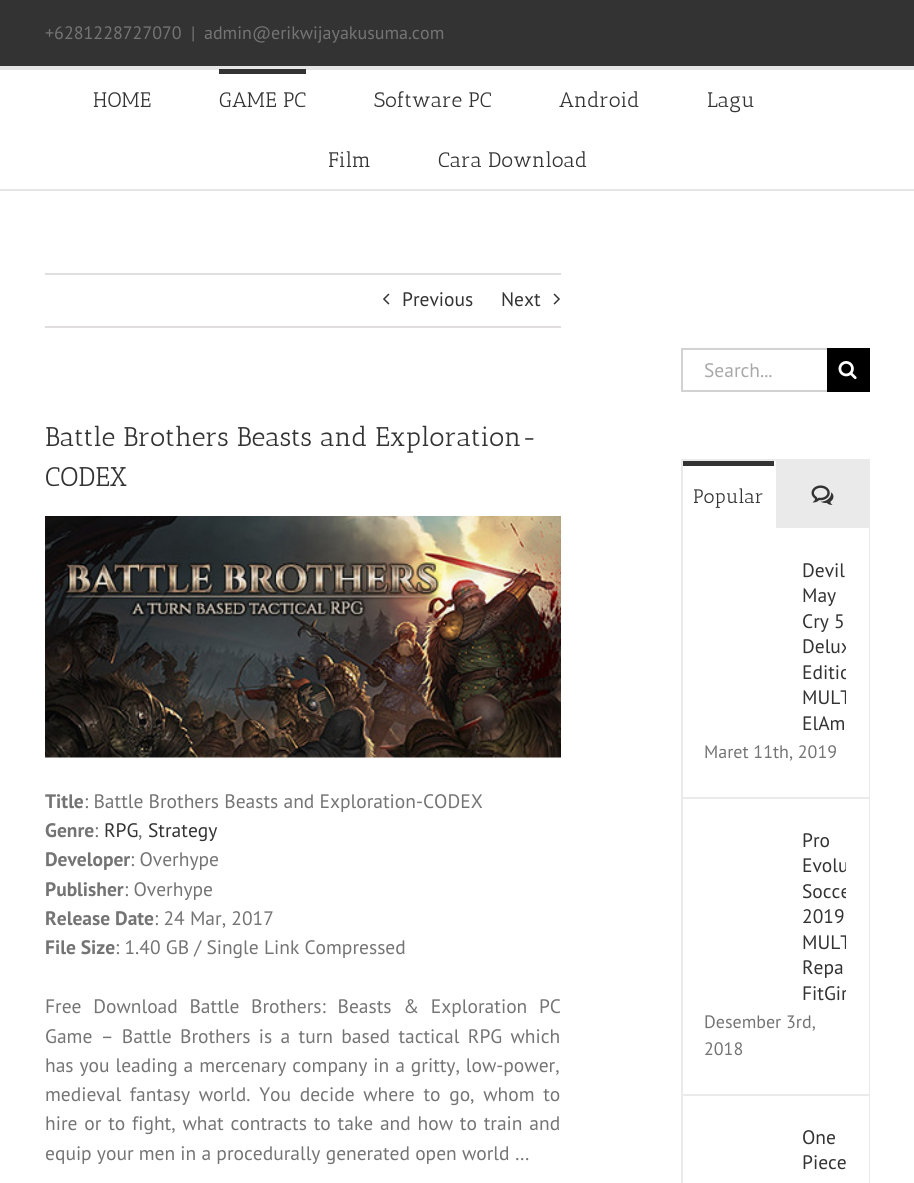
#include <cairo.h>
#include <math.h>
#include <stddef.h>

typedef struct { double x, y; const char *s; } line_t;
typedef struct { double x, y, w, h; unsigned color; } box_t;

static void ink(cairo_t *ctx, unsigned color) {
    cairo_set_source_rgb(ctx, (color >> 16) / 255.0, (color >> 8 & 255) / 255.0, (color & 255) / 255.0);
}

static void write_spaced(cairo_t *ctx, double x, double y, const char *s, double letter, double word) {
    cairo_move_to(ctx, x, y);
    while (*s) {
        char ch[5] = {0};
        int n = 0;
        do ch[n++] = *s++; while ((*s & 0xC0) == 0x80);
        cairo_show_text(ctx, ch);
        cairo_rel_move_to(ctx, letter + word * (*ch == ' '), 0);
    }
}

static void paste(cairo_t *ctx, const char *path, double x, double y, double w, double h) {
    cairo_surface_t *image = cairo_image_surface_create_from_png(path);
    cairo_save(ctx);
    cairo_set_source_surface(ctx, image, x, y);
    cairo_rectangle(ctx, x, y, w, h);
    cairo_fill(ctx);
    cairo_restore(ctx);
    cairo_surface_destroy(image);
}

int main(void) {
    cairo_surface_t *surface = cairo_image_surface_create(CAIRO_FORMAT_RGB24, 914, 1183);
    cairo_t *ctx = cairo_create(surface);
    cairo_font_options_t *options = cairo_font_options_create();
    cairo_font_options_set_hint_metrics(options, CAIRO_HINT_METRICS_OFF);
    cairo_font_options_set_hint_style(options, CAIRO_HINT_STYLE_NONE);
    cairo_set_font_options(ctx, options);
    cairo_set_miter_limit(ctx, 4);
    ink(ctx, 0xFFFFFF);
    cairo_paint(ctx);
    ink(ctx, 0x333333);
    cairo_rectangle(ctx, 0, 0, 914, 66);
    cairo_fill(ctx);
    ink(ctx, 0xE5E5E5);
    cairo_rectangle(ctx, 0, 66, 914, 4);
    cairo_fill(ctx);
    cairo_select_font_face(ctx, "PT Sans", CAIRO_FONT_SLANT_NORMAL, CAIRO_FONT_WEIGHT_NORMAL);
    cairo_set_font_size(ctx, 18);
    ink(ctx, 0x747474);
    {
        static const line_t items[] = {
            {45, 39, "+6281228727070"},
            {191, 39, "|"},
            {204, 39, "admin@erikwijayakusuma.com"},
        };
        for (size_t i = 0; i < sizeof items / sizeof *items; i++) {
            cairo_move_to(ctx, items[i].x, items[i].y);
            cairo_show_text(ctx, items[i].s);
        }
    }
    ink(ctx, 0xE5E5E5);
    cairo_rectangle(ctx, 0, 189, 914, 2);
    cairo_fill(ctx);
    cairo_select_font_face(ctx, "Antic Slab", CAIRO_FONT_SLANT_NORMAL, CAIRO_FONT_WEIGHT_NORMAL);
    cairo_set_font_size(ctx, 21);
    ink(ctx, 0x333333);
    cairo_move_to(ctx, 93, 107);
    cairo_show_text(ctx, "HOME");
    cairo_rectangle(ctx, 219, 69, 87, 5);
    cairo_fill(ctx);
    {
        static const line_t items[] = {
            {219, 107, "GAME PC"},
            {374, 107, "Software PC"},
            {559, 107, "Android"},
            {707, 107, "Lagu"},
        };
        for (size_t i = 0; i < sizeof items / sizeof *items; i++) {
            cairo_move_to(ctx, items[i].x, items[i].y);
            cairo_show_text(ctx, items[i].s);
        }
    }
    cairo_save(ctx);
    cairo_rectangle(ctx, 329, 129, 109, 60);
    cairo_clip(ctx);
    cairo_move_to(ctx, 328, 167);
    cairo_show_text(ctx, "Film");
    cairo_restore(ctx);
    cairo_move_to(ctx, 438, 167);
    cairo_show_text(ctx, "Cara Download");
    ink(ctx, 0xE0DEDE);
    cairo_rectangle(ctx, 45, 273, 516, 2);
    cairo_fill(ctx);
    cairo_rectangle(ctx, 45, 326, 516, 2);
    cairo_fill(ctx);
    paste(ctx, "media/1.png", 383, 293, 7, 12);
    cairo_select_font_face(ctx, "PT Sans", CAIRO_FONT_SLANT_NORMAL, CAIRO_FONT_WEIGHT_NORMAL);
    cairo_set_font_size(ctx, 19.5);
    ink(ctx, 0x333333);
    cairo_move_to(ctx, 402, 306);
    cairo_show_text(ctx, "Previous");
    cairo_move_to(ctx, 501, 306);
    cairo_show_text(ctx, "Next");
    paste(ctx, "media/2.png", 553, 293, 7, 12);
    cairo_select_font_face(ctx, "Antic Slab", CAIRO_FONT_SLANT_NORMAL, CAIRO_FONT_WEIGHT_NORMAL);
    cairo_set_font_size(ctx, 27);
    cairo_move_to(ctx, 45, 446);
    cairo_show_text(ctx, "Battle Brothers Beasts and Exploration-");
    cairo_move_to(ctx, 45, 486);
    cairo_show_text(ctx, "CODEX");
    paste(ctx, "media/3.png", 45, 516, 516, 242);
    cairo_select_font_face(ctx, "PT Sans", CAIRO_FONT_SLANT_NORMAL, CAIRO_FONT_WEIGHT_BOLD);
    cairo_set_font_size(ctx, 19.5);
    ink(ctx, 0x747474);
    cairo_move_to(ctx, 45, 808);
    cairo_show_text(ctx, "Title");
    cairo_select_font_face(ctx, "PT Sans", CAIRO_FONT_SLANT_NORMAL, CAIRO_FONT_WEIGHT_NORMAL);
    cairo_move_to(ctx, 84, 808);
    cairo_show_text(ctx, ": Battle Brothers Beasts and Exploration-CODEX");
    cairo_select_font_face(ctx, "PT Sans", CAIRO_FONT_SLANT_NORMAL, CAIRO_FONT_WEIGHT_BOLD);
    cairo_move_to(ctx, 45, 837);
    cairo_show_text(ctx, "Genre");
    cairo_select_font_face(ctx, "PT Sans", CAIRO_FONT_SLANT_NORMAL, CAIRO_FONT_WEIGHT_NORMAL);
    cairo_move_to(ctx, 94, 837);
    cairo_show_text(ctx, ":");
    ink(ctx, 0x333333);
    cairo_move_to(ctx, 104, 837);
    cairo_show_text(ctx, "RPG");
    ink(ctx, 0x747474);
    cairo_move_to(ctx, 138, 837);
    cairo_show_text(ctx, ",");
    ink(ctx, 0x333333);
    cairo_move_to(ctx, 148, 837);
    cairo_show_text(ctx, "Strategy");
    cairo_select_font_face(ctx, "PT Sans", CAIRO_FONT_SLANT_NORMAL, CAIRO_FONT_WEIGHT_BOLD);
    ink(ctx, 0x747474);
    cairo_move_to(ctx, 45, 866);
    cairo_show_text(ctx, "Developer");
    cairo_select_font_face(ctx, "PT Sans", CAIRO_FONT_SLANT_NORMAL, CAIRO_FONT_WEIGHT_NORMAL);
    cairo_move_to(ctx, 130, 866);
    cairo_show_text(ctx, ": Overhype");
    cairo_select_font_face(ctx, "PT Sans", CAIRO_FONT_SLANT_NORMAL, CAIRO_FONT_WEIGHT_BOLD);
    cairo_move_to(ctx, 45, 896);
    cairo_show_text(ctx, "Publisher");
    cairo_select_font_face(ctx, "PT Sans", CAIRO_FONT_SLANT_NORMAL, CAIRO_FONT_WEIGHT_NORMAL);
    cairo_move_to(ctx, 124, 896);
    cairo_show_text(ctx, ": Overhype");
    cairo_select_font_face(ctx, "PT Sans", CAIRO_FONT_SLANT_NORMAL, CAIRO_FONT_WEIGHT_BOLD);
    cairo_move_to(ctx, 45, 925);
    cairo_show_text(ctx, "Release Date");
    cairo_select_font_face(ctx, "PT Sans", CAIRO_FONT_SLANT_NORMAL, CAIRO_FONT_WEIGHT_NORMAL);
    cairo_move_to(ctx, 154, 925);
    cairo_show_text(ctx, ": 24 Mar, 2017");
    cairo_select_font_face(ctx, "PT Sans", CAIRO_FONT_SLANT_NORMAL, CAIRO_FONT_WEIGHT_BOLD);
    cairo_move_to(ctx, 45, 954);
    cairo_show_text(ctx, "File Size");
    cairo_select_font_face(ctx, "PT Sans", CAIRO_FONT_SLANT_NORMAL, CAIRO_FONT_WEIGHT_NORMAL);
    cairo_move_to(ctx, 115, 954);
    cairo_show_text(ctx, ": 1.40 GB / Single Link Compressed");
    write_spaced(ctx, 45, 1013, "Free Download Battle Brothers: Beasts & Exploration PC", 0, 6.5);
    write_spaced(ctx, 45, 1043, "Game – Battle Brothers is a turn based tactical RPG which", 0, 3.1);
    write_spaced(ctx, 45, 1072, "has you leading a mercenary company in a gritty, low-power,", 0, 0.75);
    write_spaced(ctx, 45, 1101, "medieval fantasy world. You decide where to go, whom to", 0, 3.5);
    write_spaced(ctx, 45, 1130, "hire or to fight, what contracts to take and how to train and", 0, 1.6);
    cairo_move_to(ctx, 45, 1160);
    cairo_show_text(ctx, "equip your men in a procedurally generated open world …");
    {
        static const box_t items[] = {
            {681, 348, 146, 2, 0xD2D2D2},
            {681, 390, 146, 2, 0xD2D2D2},
            {681, 348, 2, 44, 0xD2D2D2},
        };
        for (size_t i = 0; i < sizeof items / sizeof *items; i++) {
            ink(ctx, items[i].color);
            cairo_rectangle(ctx, items[i].x, items[i].y, items[i].w, items[i].h);
            cairo_fill(ctx);
        }
    }
    ink(ctx, 0xAAA9A9);
    cairo_move_to(ctx, 704, 377);
    cairo_show_text(ctx, "Search...");
    ink(ctx, 0x000000);
    cairo_rectangle(ctx, 827, 348, 43, 44);
    cairo_fill(ctx);
    paste(ctx, "media/4.png", 838, 361, 19, 19);
    cairo_rectangle(ctx, 682, 460, 187, 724);
    ink(ctx, 0xEBEAEA);
    cairo_stroke(ctx);
    ink(ctx, 0x333333);
    cairo_rectangle(ctx, 683, 461, 91, 5);
    cairo_fill(ctx);
    cairo_select_font_face(ctx, "Antic Slab", CAIRO_FONT_SLANT_NORMAL, CAIRO_FONT_WEIGHT_NORMAL);
    cairo_move_to(ctx, 693, 503);
    cairo_show_text(ctx, "Popular");
    ink(ctx, 0xEBEAEA);
    cairo_rectangle(ctx, 776, 461, 92, 67);
    cairo_fill(ctx);
    paste(ctx, "media/5.png", 811, 485, 23, 20);
    ink(ctx, 0xFFFFFF);
    cairo_rectangle(ctx, 868, 528, 1, 655);
    cairo_fill(ctx);
    ink(ctx, 0xEBEAEA);
    cairo_rectangle(ctx, 683, 797, 186, 2);
    cairo_fill(ctx);
    cairo_select_font_face(ctx, "PT Sans", CAIRO_FONT_SLANT_NORMAL, CAIRO_FONT_WEIGHT_NORMAL);
    ink(ctx, 0x333333);
    cairo_move_to(ctx, 802, 577);
    cairo_show_text(ctx, "Devil");
    cairo_move_to(ctx, 802, 602);
    cairo_show_text(ctx, "May");
    cairo_save(ctx);
    cairo_rectangle(ctx, 803, 558, 43, 179);
    cairo_clip(ctx);
    {
        static const line_t items[] = {
            {802, 628, "Cry 5"},
            {802, 653, "Delux"},
            {802, 679, "Editio"},
            {802, 704, "MULT"},
        };
        for (size_t i = 0; i < sizeof items / sizeof *items; i++) {
            cairo_move_to(ctx, items[i].x, items[i].y);
            cairo_show_text(ctx, items[i].s);
        }
    }
    cairo_restore(ctx);
    cairo_move_to(ctx, 802, 730);
    cairo_show_text(ctx, "ElAm");
    cairo_set_font_size(ctx, 18);
    ink(ctx, 0x747474);
    cairo_move_to(ctx, 704, 758);
    cairo_show_text(ctx, "Maret 11th, 2019");
    ink(ctx, 0xEBEAEA);
    cairo_rectangle(ctx, 683, 1094, 186, 2);
    cairo_fill(ctx);
    cairo_set_font_size(ctx, 19.5);
    ink(ctx, 0x333333);
    cairo_move_to(ctx, 802, 847);
    cairo_show_text(ctx, "Pro");
    cairo_save(ctx);
    cairo_rectangle(ctx, 803, 828, 43, 179);
    cairo_clip(ctx);
    cairo_move_to(ctx, 802, 872);
    cairo_show_text(ctx, "Evolu");
    cairo_move_to(ctx, 802, 898);
    cairo_show_text(ctx, "Socce");
    cairo_restore(ctx);
    cairo_move_to(ctx, 802, 923);
    cairo_show_text(ctx, "2019");
    cairo_save(ctx);
    cairo_rectangle(ctx, 803, 828, 43, 179);
    cairo_clip(ctx);
    cairo_move_to(ctx, 802, 949);
    cairo_show_text(ctx, "MULT");
    cairo_restore(ctx);
    cairo_move_to(ctx, 802, 974);
    cairo_show_text(ctx, "Repa");
    cairo_save(ctx);
    cairo_rectangle(ctx, 803, 828, 43, 179);
    cairo_clip(ctx);
    cairo_move_to(ctx, 802, 1000);
    cairo_show_text(ctx, "FitGir");
    cairo_restore(ctx);
    cairo_set_font_size(ctx, 18);
    ink(ctx, 0x747474);
    cairo_move_to(ctx, 704, 1028);
    cairo_show_text(ctx, "Desember 3rd,");
    cairo_move_to(ctx, 704, 1055);
    cairo_show_text(ctx, "2018");
    cairo_save(ctx);
    cairo_rectangle(ctx, 803, 1125, 43, 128);
    cairo_clip(ctx);
    cairo_set_font_size(ctx, 19.5);
    ink(ctx, 0x333333);
    cairo_move_to(ctx, 802, 1144);
    cairo_show_text(ctx, "One");
    cairo_restore(ctx);
    cairo_set_font_size(ctx, 19.5);
    ink(ctx, 0x333333);
    cairo_move_to(ctx, 802, 1169);
    cairo_show_text(ctx, "Piece");
    cairo_surface_write_to_png(surface, "image.png");
    cairo_font_options_destroy(options);
    cairo_destroy(ctx);
    cairo_surface_destroy(surface);
    return 0;
}
